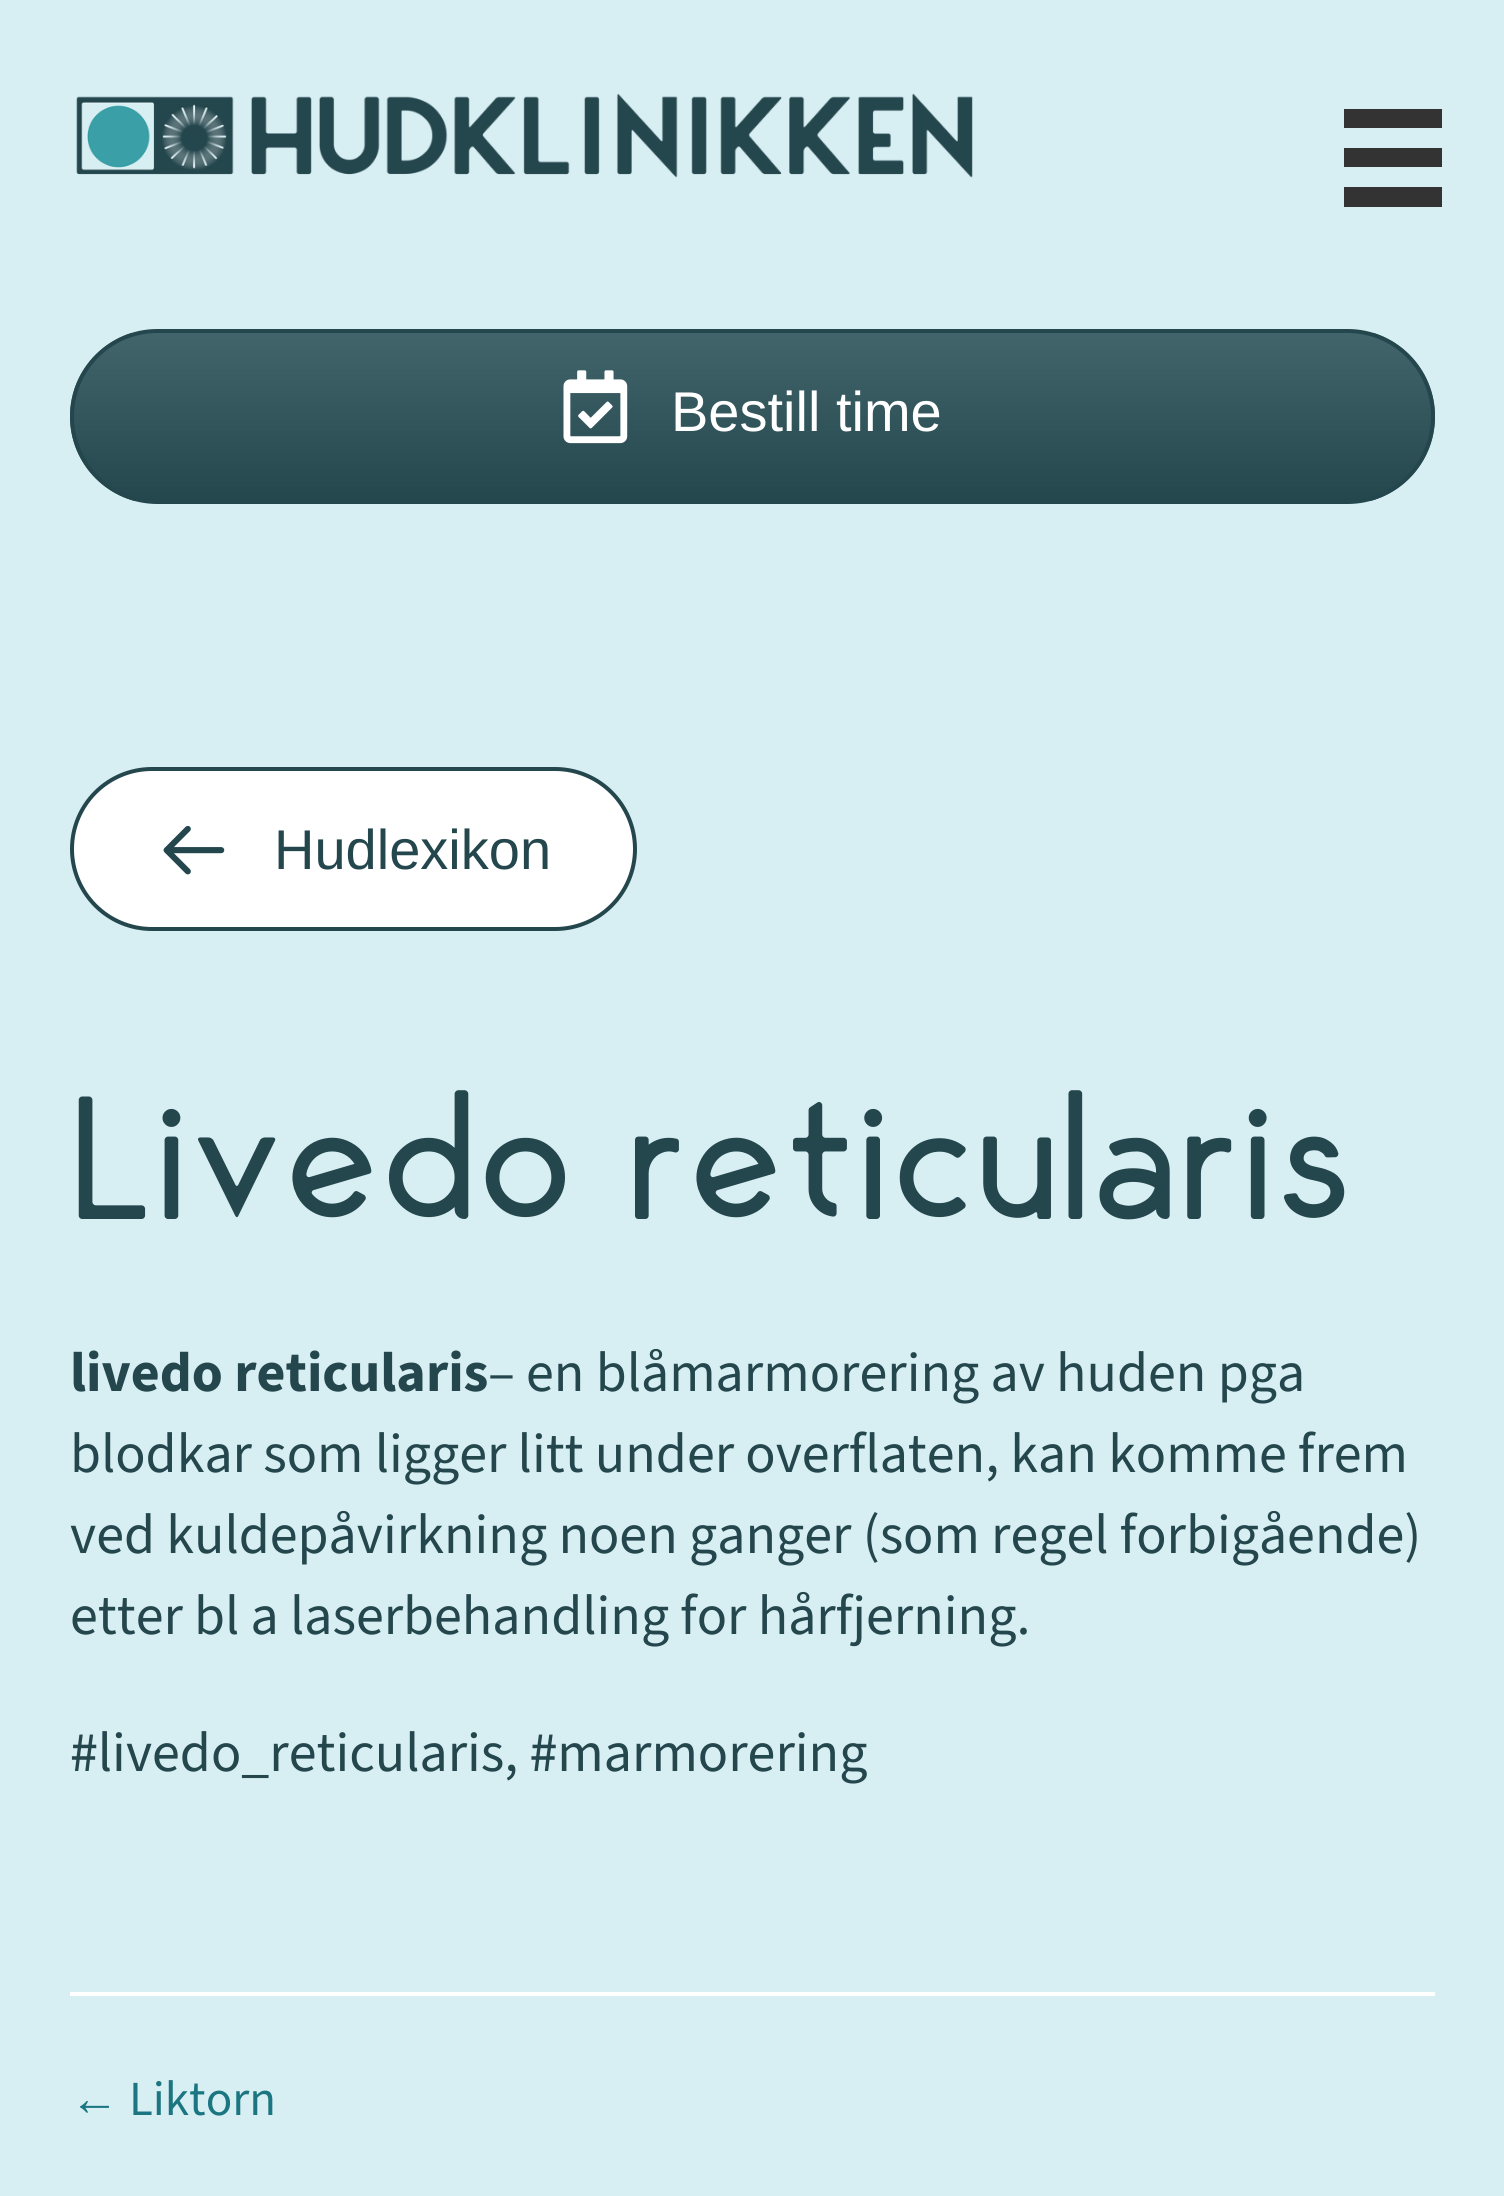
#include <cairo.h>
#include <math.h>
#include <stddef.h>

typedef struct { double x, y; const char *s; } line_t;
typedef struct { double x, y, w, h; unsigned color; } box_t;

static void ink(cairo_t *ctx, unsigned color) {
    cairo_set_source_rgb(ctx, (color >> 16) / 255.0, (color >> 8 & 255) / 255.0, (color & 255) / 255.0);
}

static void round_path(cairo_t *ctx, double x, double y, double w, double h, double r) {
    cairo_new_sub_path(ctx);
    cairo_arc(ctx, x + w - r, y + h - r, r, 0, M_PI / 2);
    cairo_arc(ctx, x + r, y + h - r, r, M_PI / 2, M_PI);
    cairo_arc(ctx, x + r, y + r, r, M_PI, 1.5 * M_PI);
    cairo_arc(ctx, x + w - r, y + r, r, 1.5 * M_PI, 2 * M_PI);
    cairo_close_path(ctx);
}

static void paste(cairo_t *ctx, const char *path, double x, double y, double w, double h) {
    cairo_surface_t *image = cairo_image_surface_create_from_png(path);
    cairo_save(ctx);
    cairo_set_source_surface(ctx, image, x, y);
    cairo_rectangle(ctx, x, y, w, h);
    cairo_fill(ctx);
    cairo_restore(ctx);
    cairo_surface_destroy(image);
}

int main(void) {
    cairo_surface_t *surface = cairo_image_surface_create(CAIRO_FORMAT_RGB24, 1504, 2196);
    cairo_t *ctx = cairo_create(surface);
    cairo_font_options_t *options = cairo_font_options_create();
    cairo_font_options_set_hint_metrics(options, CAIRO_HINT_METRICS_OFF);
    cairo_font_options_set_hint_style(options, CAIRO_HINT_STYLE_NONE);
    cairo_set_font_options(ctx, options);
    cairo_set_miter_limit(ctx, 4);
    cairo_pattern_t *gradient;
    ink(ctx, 0xD7EEF2);
    cairo_paint(ctx);
    paste(ctx, "media/1.png", 76, 93, 897, 85);
    {
        static const box_t items[] = {
            {1344, 109, 98, 19, 0x333333},
            {1344, 148, 98, 19, 0x333333},
            {1344, 187, 98, 20, 0x333333},
        };
        for (size_t i = 0; i < sizeof items / sizeof *items; i++) {
            ink(ctx, items[i].color);
            cairo_rectangle(ctx, items[i].x, items[i].y, items[i].w, items[i].h);
            cairo_fill(ctx);
        }
    }
    cairo_save(ctx);
    round_path(ctx, 70, 329, 1365, 175, 87.5);
    cairo_clip(ctx);
    gradient = cairo_pattern_create_linear(753, 332, 753, 501);
    cairo_pattern_add_color_stop_rgba(gradient, 0, 0.259, 0.392, 0.42, 1);
    cairo_pattern_add_color_stop_rgba(gradient, 1, 0.141, 0.275, 0.302, 1);
    cairo_set_source(ctx, gradient);
    cairo_pattern_destroy(gradient);
    cairo_rectangle(ctx, 70, 333, 1365, 168);
    cairo_fill(ctx);
    cairo_restore(ctx);
    round_path(ctx, 72, 331, 1361, 171, 85.5);
    ink(ctx, 0x24464D);
    cairo_set_line_width(ctx, 4);
    cairo_stroke(ctx);
    paste(ctx, "media/2.png", 563, 370, 65, 74);
    cairo_select_font_face(ctx, "Liberation Sans", CAIRO_FONT_SLANT_NORMAL, CAIRO_FONT_WEIGHT_NORMAL);
    cairo_set_font_size(ctx, 56);
    ink(ctx, 0xFFFFFF);
    cairo_move_to(ctx, 671, 431);
    cairo_show_text(ctx, "Bestill time");
    round_path(ctx, 72, 769, 563, 160, 80);
    cairo_fill_preserve(ctx);
    ink(ctx, 0x24464D);
    cairo_stroke(ctx);
    paste(ctx, "media/3.png", 163, 825, 62, 50);
    cairo_move_to(ctx, 274, 869);
    cairo_show_text(ctx, "Hudlexikon");
    cairo_select_font_face(ctx, "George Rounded", CAIRO_FONT_SLANT_NORMAL, CAIRO_FONT_WEIGHT_NORMAL);
    cairo_set_font_size(ctx, 175);
    cairo_move_to(ctx, 70, 1219);
    cairo_show_text(ctx, "Livedo reticularis");
    cairo_select_font_face(ctx, "Source Sans 3", CAIRO_FONT_SLANT_NORMAL, CAIRO_FONT_WEIGHT_BOLD);
    cairo_set_font_size(ctx, 56);
    cairo_move_to(ctx, 70, 1391);
    cairo_show_text(ctx, "livedo reticularis");
    cairo_select_font_face(ctx, "Source Sans 3", CAIRO_FONT_SLANT_NORMAL, CAIRO_FONT_WEIGHT_NORMAL);
    {
        static const line_t items[] = {
            {488, 1391, "– en blåmarmorering av huden pga"},
            {70, 1472, "blodkar som ligger litt under overflaten, kan komme frem"},
            {70, 1553, "ved kuldepåvirkning noen ganger (som regel forbigående)"},
            {70, 1634, "etter bl a laserbehandling for hårfjerning."},
            {70, 1771, "#livedo_reticularis, #marmorering"},
        };
        for (size_t i = 0; i < sizeof items / sizeof *items; i++) {
            cairo_move_to(ctx, items[i].x, items[i].y);
            cairo_show_text(ctx, items[i].s);
        }
    }
    ink(ctx, 0xFFFFFF);
    cairo_rectangle(ctx, 70, 1992, 1365, 4);
    cairo_fill(ctx);
    cairo_select_font_face(ctx, "Liberation Sans", CAIRO_FONT_SLANT_NORMAL, CAIRO_FONT_WEIGHT_NORMAL);
    cairo_set_font_size(ctx, 49);
    ink(ctx, 0x1B7682);
    cairo_move_to(ctx, 70, 2115);
    cairo_show_text(ctx, "←");
    cairo_select_font_face(ctx, "Source Sans 3", CAIRO_FONT_SLANT_NORMAL, CAIRO_FONT_WEIGHT_NORMAL);
    cairo_move_to(ctx, 129, 2115);
    cairo_show_text(ctx, "Liktorn");
    cairo_surface_write_to_png(surface, "image.png");
    cairo_font_options_destroy(options);
    cairo_destroy(ctx);
    cairo_surface_destroy(surface);
    return 0;
}
